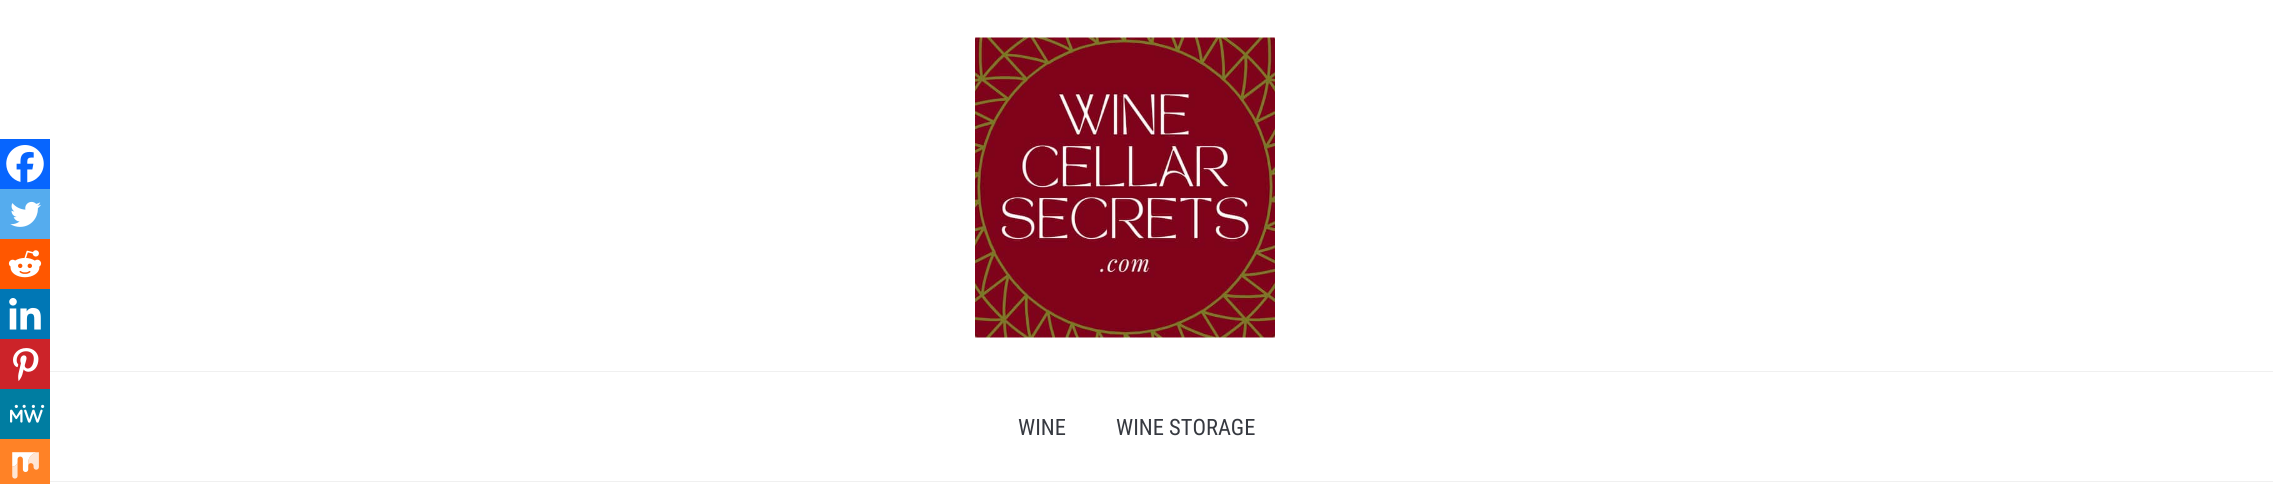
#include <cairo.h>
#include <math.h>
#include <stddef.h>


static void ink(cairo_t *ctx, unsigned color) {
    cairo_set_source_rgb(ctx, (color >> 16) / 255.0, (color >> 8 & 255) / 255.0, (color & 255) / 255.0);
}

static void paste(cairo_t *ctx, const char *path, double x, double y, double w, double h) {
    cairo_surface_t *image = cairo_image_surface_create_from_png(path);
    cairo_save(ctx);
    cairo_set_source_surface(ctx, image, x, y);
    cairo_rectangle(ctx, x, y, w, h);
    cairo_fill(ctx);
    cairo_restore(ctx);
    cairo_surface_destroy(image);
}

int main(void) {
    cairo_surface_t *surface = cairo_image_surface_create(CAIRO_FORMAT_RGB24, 2273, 484);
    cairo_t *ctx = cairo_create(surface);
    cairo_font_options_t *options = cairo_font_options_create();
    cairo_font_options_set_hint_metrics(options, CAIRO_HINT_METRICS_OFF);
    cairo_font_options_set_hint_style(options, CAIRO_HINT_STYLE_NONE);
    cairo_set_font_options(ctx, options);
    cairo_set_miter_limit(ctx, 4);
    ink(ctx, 0xFFFFFF);
    cairo_paint(ctx);
    ink(ctx, 0x0765FE);
    cairo_rectangle(ctx, 0, 139, 50, 50);
    cairo_fill(ctx);
    paste(ctx, "media/1.png", 6, 145, 38, 38);
    ink(ctx, 0x55ACEE);
    cairo_rectangle(ctx, 0, 189, 50, 50);
    cairo_fill(ctx);
    paste(ctx, "media/2.png", 10, 201, 31, 26);
    ink(ctx, 0xFF5700);
    cairo_rectangle(ctx, 0, 239, 50, 50);
    cairo_fill(ctx);
    paste(ctx, "media/3.png", 8, 250, 34, 28);
    ink(ctx, 0x0077B5);
    cairo_rectangle(ctx, 0, 289, 50, 50);
    cairo_fill(ctx);
    paste(ctx, "media/4.png", 9, 298, 32, 32);
    ink(ctx, 0xCC2329);
    cairo_rectangle(ctx, 0, 339, 50, 50);
    cairo_fill(ctx);
    paste(ctx, "media/5.png", 13, 348, 26, 33);
    ink(ctx, 0x007DA1);
    cairo_rectangle(ctx, 0, 389, 50, 50);
    cairo_fill(ctx);
    paste(ctx, "media/6.png", 10, 404, 35, 19);
    ink(ctx, 0xFF8226);
    cairo_rectangle(ctx, 0, 439, 50, 45);
    cairo_fill(ctx);
    paste(ctx, "media/7.png", 12, 452, 27, 27);
    paste(ctx, "media/8.png", 975, 37, 300, 301);
    ink(ctx, 0xF0F0F0);
    cairo_rectangle(ctx, 50, 371, 2223, 1);
    cairo_fill(ctx);
    cairo_rectangle(ctx, 50, 481, 2223, 1);
    cairo_fill(ctx);
    cairo_select_font_face(ctx, "Roboto Condensed", CAIRO_FONT_SLANT_NORMAL, CAIRO_FONT_WEIGHT_NORMAL);
    cairo_set_font_size(ctx, 22.5);
    ink(ctx, 0x363940);
    cairo_move_to(ctx, 1018, 435);
    cairo_show_text(ctx, "WINE");
    cairo_move_to(ctx, 1116, 435);
    cairo_show_text(ctx, "WINE STORAGE");
    cairo_surface_write_to_png(surface, "image.png");
    cairo_font_options_destroy(options);
    cairo_destroy(ctx);
    cairo_surface_destroy(surface);
    return 0;
}
